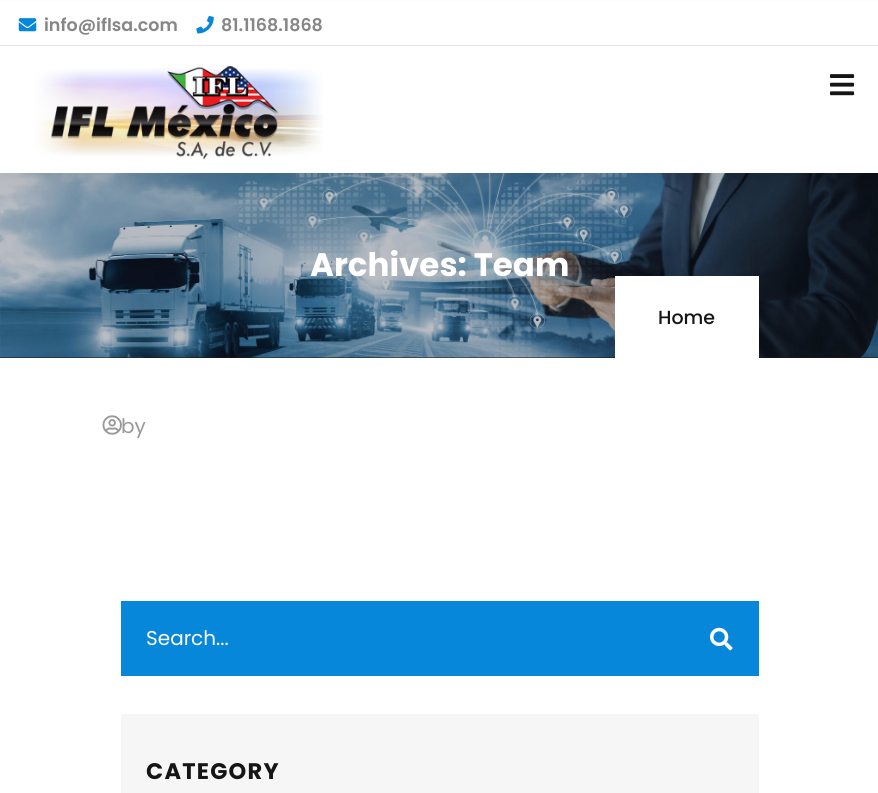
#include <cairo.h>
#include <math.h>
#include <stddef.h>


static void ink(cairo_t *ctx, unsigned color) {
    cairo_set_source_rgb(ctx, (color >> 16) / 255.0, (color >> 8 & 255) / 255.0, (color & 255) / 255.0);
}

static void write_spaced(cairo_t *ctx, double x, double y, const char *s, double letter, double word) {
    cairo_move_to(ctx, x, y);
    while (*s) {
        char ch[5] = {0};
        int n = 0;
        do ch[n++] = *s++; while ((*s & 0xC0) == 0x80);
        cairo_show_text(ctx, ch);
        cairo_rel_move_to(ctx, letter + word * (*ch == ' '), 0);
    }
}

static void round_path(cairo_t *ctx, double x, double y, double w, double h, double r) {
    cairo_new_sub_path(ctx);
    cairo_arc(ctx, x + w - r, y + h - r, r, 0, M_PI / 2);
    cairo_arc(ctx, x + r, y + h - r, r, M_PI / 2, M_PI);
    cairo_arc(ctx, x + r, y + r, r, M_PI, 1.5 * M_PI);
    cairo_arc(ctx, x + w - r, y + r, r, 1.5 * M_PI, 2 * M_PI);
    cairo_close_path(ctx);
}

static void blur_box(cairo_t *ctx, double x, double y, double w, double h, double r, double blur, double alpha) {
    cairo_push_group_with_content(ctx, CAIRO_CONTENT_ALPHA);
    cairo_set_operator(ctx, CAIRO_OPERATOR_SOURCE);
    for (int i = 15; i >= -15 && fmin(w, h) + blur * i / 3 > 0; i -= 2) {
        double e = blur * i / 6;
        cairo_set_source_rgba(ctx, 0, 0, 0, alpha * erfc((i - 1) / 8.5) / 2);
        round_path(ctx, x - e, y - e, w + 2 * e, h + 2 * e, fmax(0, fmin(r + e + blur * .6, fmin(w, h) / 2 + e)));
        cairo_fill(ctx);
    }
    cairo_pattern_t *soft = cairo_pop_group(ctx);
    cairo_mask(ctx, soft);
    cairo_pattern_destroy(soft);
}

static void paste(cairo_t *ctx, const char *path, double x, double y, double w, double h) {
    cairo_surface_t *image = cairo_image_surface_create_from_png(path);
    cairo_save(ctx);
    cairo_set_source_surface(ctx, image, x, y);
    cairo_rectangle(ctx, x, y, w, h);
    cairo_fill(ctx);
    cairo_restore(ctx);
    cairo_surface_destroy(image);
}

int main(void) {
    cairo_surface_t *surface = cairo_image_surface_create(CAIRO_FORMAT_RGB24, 878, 793);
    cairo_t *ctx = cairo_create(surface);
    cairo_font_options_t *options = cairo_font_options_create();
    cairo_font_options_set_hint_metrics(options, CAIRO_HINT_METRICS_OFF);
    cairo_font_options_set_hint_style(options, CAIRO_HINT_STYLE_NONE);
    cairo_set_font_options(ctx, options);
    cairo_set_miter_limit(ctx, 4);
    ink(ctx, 0xFFFFFF);
    cairo_paint(ctx);
    ink(ctx, 0x161A1F);
    cairo_rectangle(ctx, 0, 357, 878, 1);
    cairo_fill(ctx);
    paste(ctx, "media/5.png", 0, 173, 878, 185);
    ink(ctx, 0x000000);
    blur_box(ctx, 0, 6, 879, 173, 0, 6, 0.05);
    ink(ctx, 0xFFFFFF);
    cairo_rectangle(ctx, 0, 1, 878, 172);
    cairo_fill(ctx);
    ink(ctx, 0xE4E4E4);
    cairo_rectangle(ctx, 0, 45, 878, 1);
    cairo_fill(ctx);
    paste(ctx, "media/1.png", 18, 18, 19, 14);
    cairo_select_font_face(ctx, "Poppins SemiBold", CAIRO_FONT_SLANT_NORMAL, CAIRO_FONT_WEIGHT_NORMAL);
    cairo_set_font_size(ctx, 17.5);
    ink(ctx, 0x868686);
    cairo_move_to(ctx, 44, 31);
    cairo_show_text(ctx, "info@iflsa.com");
    paste(ctx, "media/2.png", 196, 16, 18, 18);
    cairo_move_to(ctx, 221, 31);
    cairo_show_text(ctx, "81.1168.1868");
    paste(ctx, "media/3.png", 35, 65, 288, 95);
    paste(ctx, "media/4.png", 830, 74, 25, 22);
    cairo_select_font_face(ctx, "Poppins", CAIRO_FONT_SLANT_NORMAL, CAIRO_FONT_WEIGHT_BOLD);
    cairo_set_font_size(ctx, 32.5);
    ink(ctx, 0xFFFFFF);
    cairo_move_to(ctx, 310, 276);
    cairo_show_text(ctx, "Archives: Team");
    cairo_rectangle(ctx, 615, 276, 144, 82);
    cairo_fill(ctx);
    cairo_select_font_face(ctx, "Poppins Medium", CAIRO_FONT_SLANT_NORMAL, CAIRO_FONT_WEIGHT_NORMAL);
    cairo_set_font_size(ctx, 19);
    ink(ctx, 0x151515);
    cairo_move_to(ctx, 658, 324);
    cairo_show_text(ctx, "Home");
    paste(ctx, "media/6.png", 102, 415, 20, 20);
    cairo_select_font_face(ctx, "Poppins", CAIRO_FONT_SLANT_NORMAL, CAIRO_FONT_WEIGHT_NORMAL);
    cairo_set_font_size(ctx, 20);
    ink(ctx, 0x999999);
    cairo_move_to(ctx, 121, 433);
    cairo_show_text(ctx, "by");
    ink(ctx, 0x0787D9);
    cairo_rectangle(ctx, 121, 601, 638, 75);
    cairo_fill(ctx);
    ink(ctx, 0xFFFFFF);
    cairo_move_to(ctx, 146, 645);
    cairo_show_text(ctx, "Search...");
    paste(ctx, "media/7.png", 710, 627, 23, 24);
    ink(ctx, 0xF6F6F6);
    cairo_rectangle(ctx, 121, 714, 638, 79);
    cairo_fill(ctx);
    cairo_select_font_face(ctx, "Poppins", CAIRO_FONT_SLANT_NORMAL, CAIRO_FONT_WEIGHT_BOLD);
    cairo_set_font_size(ctx, 22.5);
    ink(ctx, 0x151515);
    write_spaced(ctx, 146, 779, "CATEGORY", 1.25, 0);
    cairo_surface_write_to_png(surface, "image.png");
    cairo_font_options_destroy(options);
    cairo_destroy(ctx);
    cairo_surface_destroy(surface);
    return 0;
}
